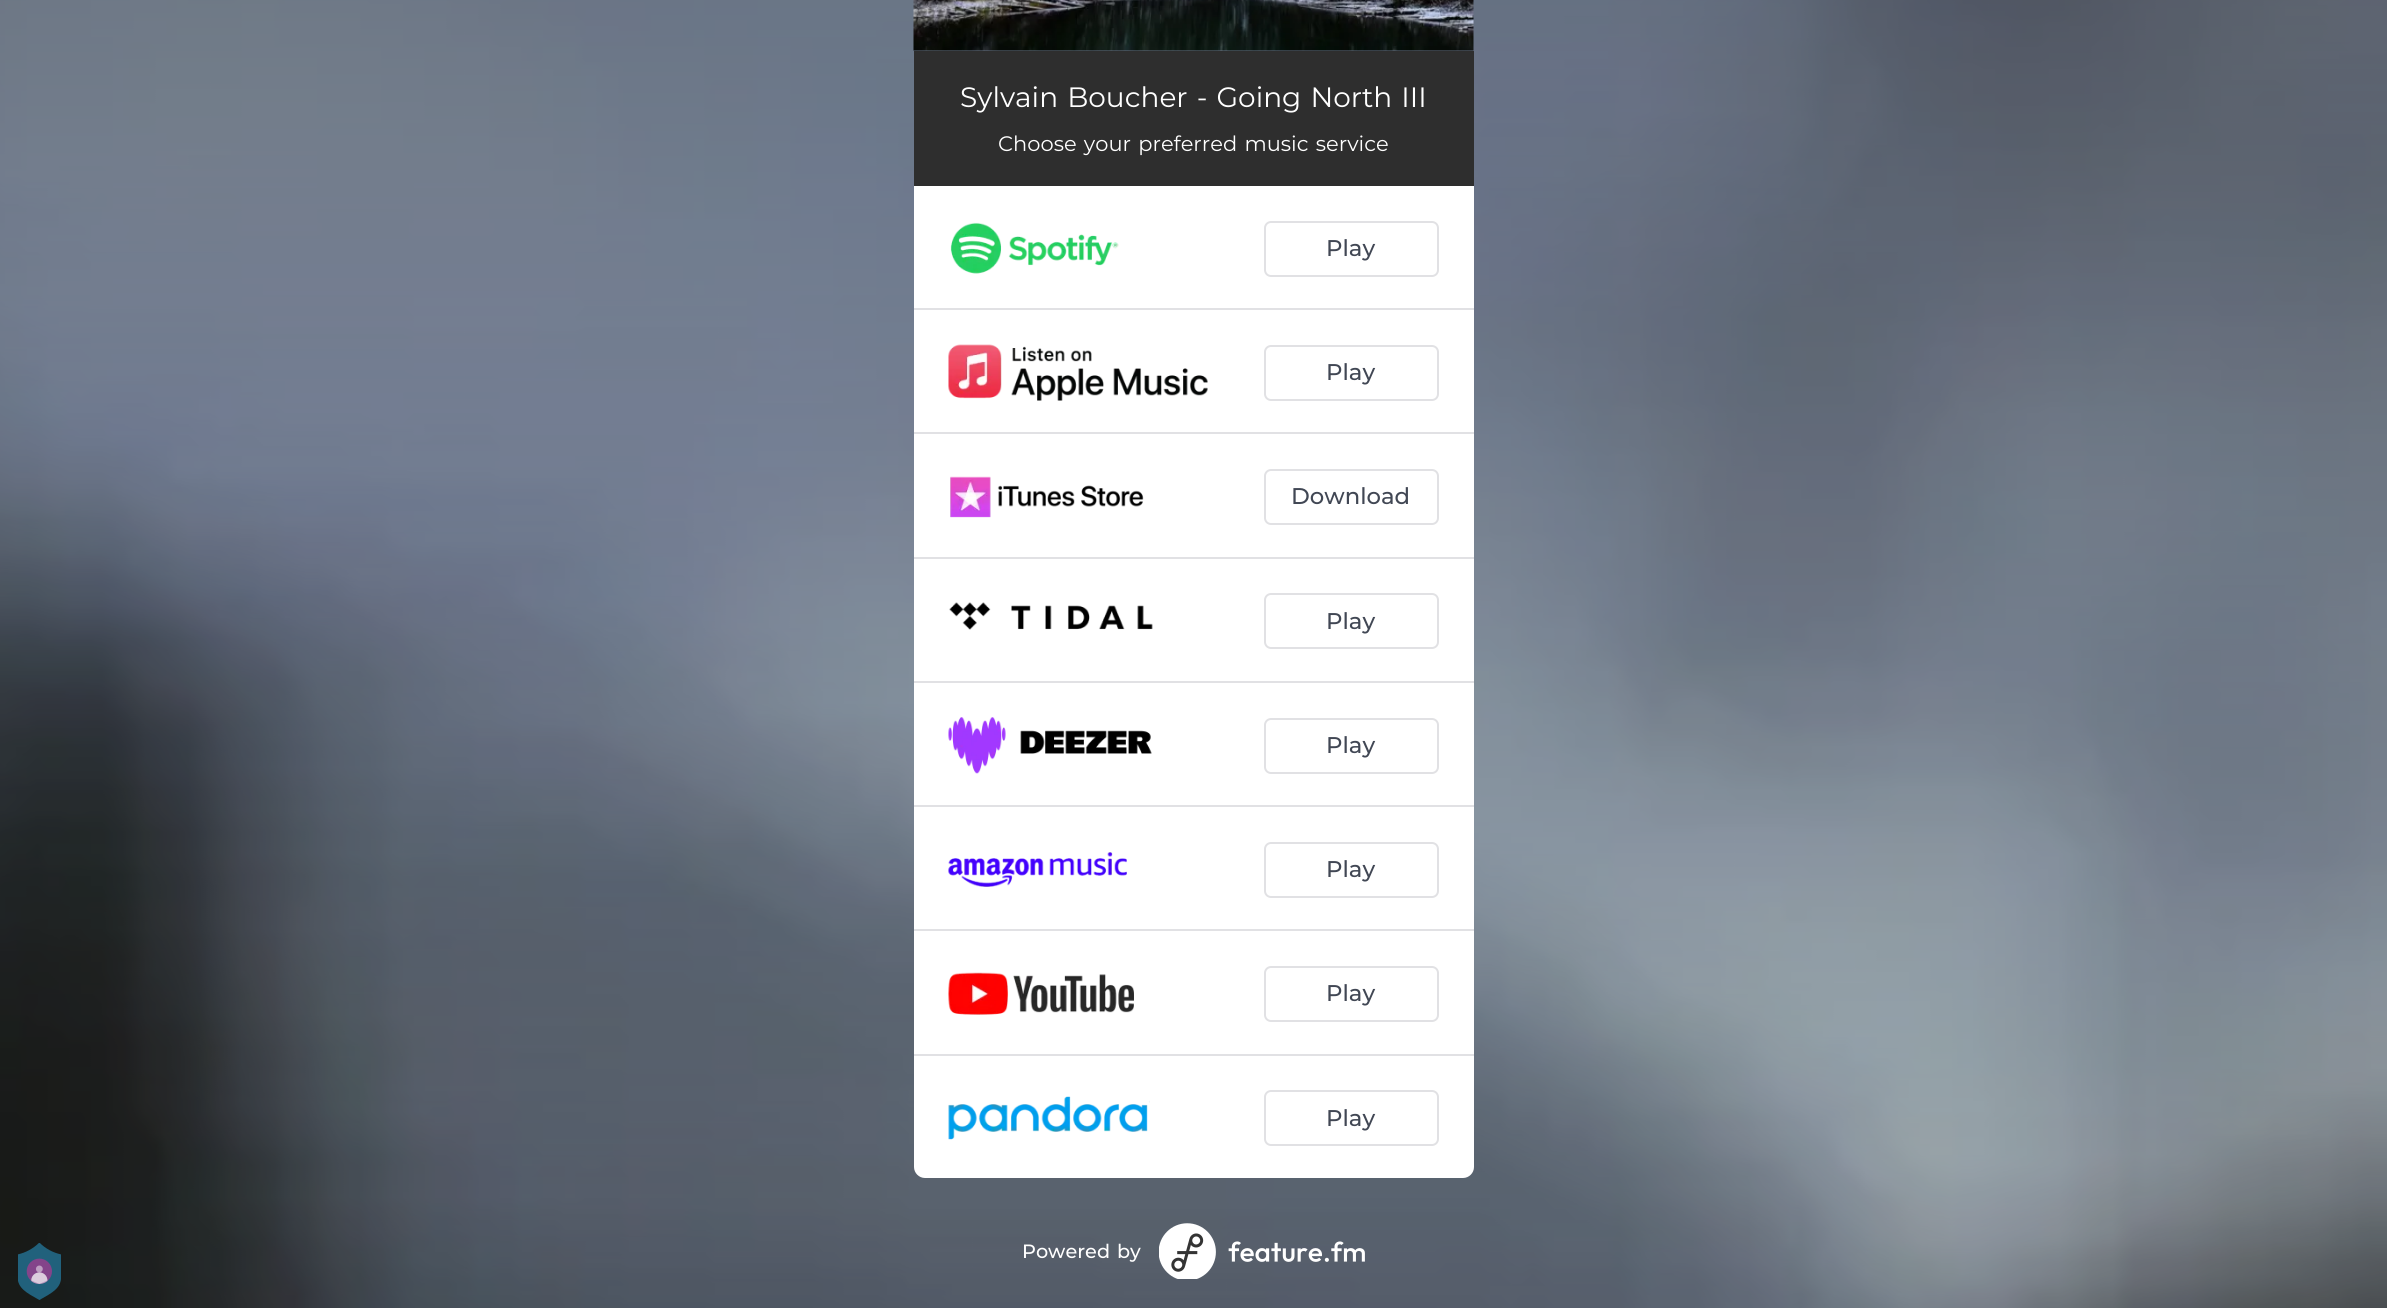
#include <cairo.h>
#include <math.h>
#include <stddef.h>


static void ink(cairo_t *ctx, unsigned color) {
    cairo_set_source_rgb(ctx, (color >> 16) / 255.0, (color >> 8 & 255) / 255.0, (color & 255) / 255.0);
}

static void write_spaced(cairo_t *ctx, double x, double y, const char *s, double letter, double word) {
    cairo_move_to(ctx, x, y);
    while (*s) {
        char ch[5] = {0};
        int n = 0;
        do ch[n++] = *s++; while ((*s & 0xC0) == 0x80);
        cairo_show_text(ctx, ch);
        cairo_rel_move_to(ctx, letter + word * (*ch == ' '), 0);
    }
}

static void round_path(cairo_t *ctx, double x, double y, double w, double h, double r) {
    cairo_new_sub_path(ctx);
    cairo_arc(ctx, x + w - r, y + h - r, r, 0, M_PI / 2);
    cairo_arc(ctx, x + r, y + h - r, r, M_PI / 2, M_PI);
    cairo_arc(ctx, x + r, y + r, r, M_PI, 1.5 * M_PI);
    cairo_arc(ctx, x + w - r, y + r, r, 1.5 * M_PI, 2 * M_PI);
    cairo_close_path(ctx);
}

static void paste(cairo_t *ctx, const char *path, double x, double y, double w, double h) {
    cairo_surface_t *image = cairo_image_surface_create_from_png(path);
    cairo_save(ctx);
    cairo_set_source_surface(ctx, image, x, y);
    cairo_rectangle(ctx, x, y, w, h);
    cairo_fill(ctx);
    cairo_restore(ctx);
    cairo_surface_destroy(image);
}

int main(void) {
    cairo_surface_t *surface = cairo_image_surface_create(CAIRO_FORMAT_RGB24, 2387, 1308);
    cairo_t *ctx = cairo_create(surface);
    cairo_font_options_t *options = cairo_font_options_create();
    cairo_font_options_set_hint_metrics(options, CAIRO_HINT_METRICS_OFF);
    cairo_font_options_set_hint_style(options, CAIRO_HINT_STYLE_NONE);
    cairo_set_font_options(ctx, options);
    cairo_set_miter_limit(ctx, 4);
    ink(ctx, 0xFFFFFF);
    cairo_paint(ctx);
    paste(ctx, "media/1.png", 0, 0, 2387, 1308);
    paste(ctx, "media/2.png", 913, 0, 561, 51);
    ink(ctx, 0x2E2E2E);
    cairo_rectangle(ctx, 914, 51, 560, 135);
    cairo_fill(ctx);
    cairo_select_font_face(ctx, "Montserrat", CAIRO_FONT_SLANT_NORMAL, CAIRO_FONT_WEIGHT_NORMAL);
    cairo_set_font_size(ctx, 28);
    ink(ctx, 0xFFFFFF);
    write_spaced(ctx, 960, 107, "Sylvain Boucher - Going North III", 0, 1.75);
    cairo_set_font_size(ctx, 21);
    write_spaced(ctx, 998, 151, "Choose your preferred music service", 0, 1.75);
    cairo_new_path(ctx);
    cairo_move_to(ctx, 914, 186);
    cairo_line_to(ctx, 1474, 186);
    cairo_line_to(ctx, 1474, 1167);
    cairo_curve_to(ctx, 1474, 1173, 1469, 1178, 1463, 1178);
    cairo_line_to(ctx, 925, 1178);
    cairo_curve_to(ctx, 919, 1178, 914, 1173, 914, 1167);
    cairo_close_path(ctx);
    cairo_fill(ctx);
    ink(ctx, 0xE1E1E4);
    cairo_rectangle(ctx, 914, 308, 560, 2);
    cairo_fill(ctx);
    paste(ctx, "media/3.png", 950, 222, 169, 52);
    round_path(ctx, 1265, 222, 173, 54, 6);
    cairo_stroke(ctx);
    cairo_select_font_face(ctx, "Montserrat Medium", CAIRO_FONT_SLANT_NORMAL, CAIRO_FONT_WEIGHT_NORMAL);
    cairo_set_font_size(ctx, 22.75);
    ink(ctx, 0x414754);
    cairo_move_to(ctx, 1326, 256);
    cairo_show_text(ctx, "Play");
    ink(ctx, 0xE1E1E4);
    cairo_rectangle(ctx, 914, 432, 560, 2);
    cairo_fill(ctx);
    paste(ctx, "media/4.png", 948, 344, 260, 57);
    round_path(ctx, 1265, 346, 173, 54, 6);
    cairo_stroke(ctx);
    ink(ctx, 0x414754);
    cairo_move_to(ctx, 1326, 380);
    cairo_show_text(ctx, "Play");
    ink(ctx, 0xE1E1E4);
    cairo_rectangle(ctx, 914, 557, 560, 2);
    cairo_fill(ctx);
    paste(ctx, "media/5.png", 950, 476, 194, 42);
    round_path(ctx, 1265, 470, 173, 54, 6);
    cairo_stroke(ctx);
    ink(ctx, 0x414754);
    cairo_move_to(ctx, 1291, 504);
    cairo_show_text(ctx, "Download");
    ink(ctx, 0xE1E1E4);
    cairo_rectangle(ctx, 914, 681, 560, 2);
    cairo_fill(ctx);
    paste(ctx, "media/6.png", 949, 602, 204, 28);
    round_path(ctx, 1265, 594, 173, 54, 6);
    cairo_stroke(ctx);
    ink(ctx, 0x414754);
    cairo_move_to(ctx, 1326, 629);
    cairo_show_text(ctx, "Play");
    ink(ctx, 0xE1E1E4);
    cairo_rectangle(ctx, 914, 805, 560, 2);
    cairo_fill(ctx);
    paste(ctx, "media/7.png", 948, 717, 204, 57);
    round_path(ctx, 1265, 719, 173, 54, 6);
    cairo_stroke(ctx);
    ink(ctx, 0x414754);
    cairo_move_to(ctx, 1326, 753);
    cairo_show_text(ctx, "Play");
    ink(ctx, 0xE1E1E4);
    cairo_rectangle(ctx, 914, 929, 560, 2);
    cairo_fill(ctx);
    paste(ctx, "media/8.png", 948, 852, 179, 35);
    round_path(ctx, 1265, 843, 173, 54, 6);
    cairo_stroke(ctx);
    ink(ctx, 0x414754);
    cairo_move_to(ctx, 1326, 877);
    cairo_show_text(ctx, "Play");
    ink(ctx, 0xE1E1E4);
    cairo_rectangle(ctx, 914, 1054, 560, 2);
    cairo_fill(ctx);
    paste(ctx, "media/9.png", 948, 972, 186, 43);
    round_path(ctx, 1265, 967, 173, 54, 6);
    cairo_stroke(ctx);
    ink(ctx, 0x414754);
    cairo_move_to(ctx, 1326, 1001);
    cairo_show_text(ctx, "Play");
    paste(ctx, "media/10.png", 948, 1096, 202, 44);
    round_path(ctx, 1265, 1091, 173, 54, 6);
    ink(ctx, 0xE1E1E4);
    cairo_stroke(ctx);
    ink(ctx, 0x414754);
    cairo_move_to(ctx, 1326, 1126);
    cairo_show_text(ctx, "Play");
    cairo_set_font_size(ctx, 19.25);
    ink(ctx, 0xFFFFFF);
    write_spaced(ctx, 1022, 1258, "Powered by", 0, 1.75);
    paste(ctx, "media/11.png", 1159, 1223, 206, 56);
    paste(ctx, "media/12.png", 18, 1243, 43, 57);
    cairo_surface_write_to_png(surface, "image.png");
    cairo_font_options_destroy(options);
    cairo_destroy(ctx);
    cairo_surface_destroy(surface);
    return 0;
}
